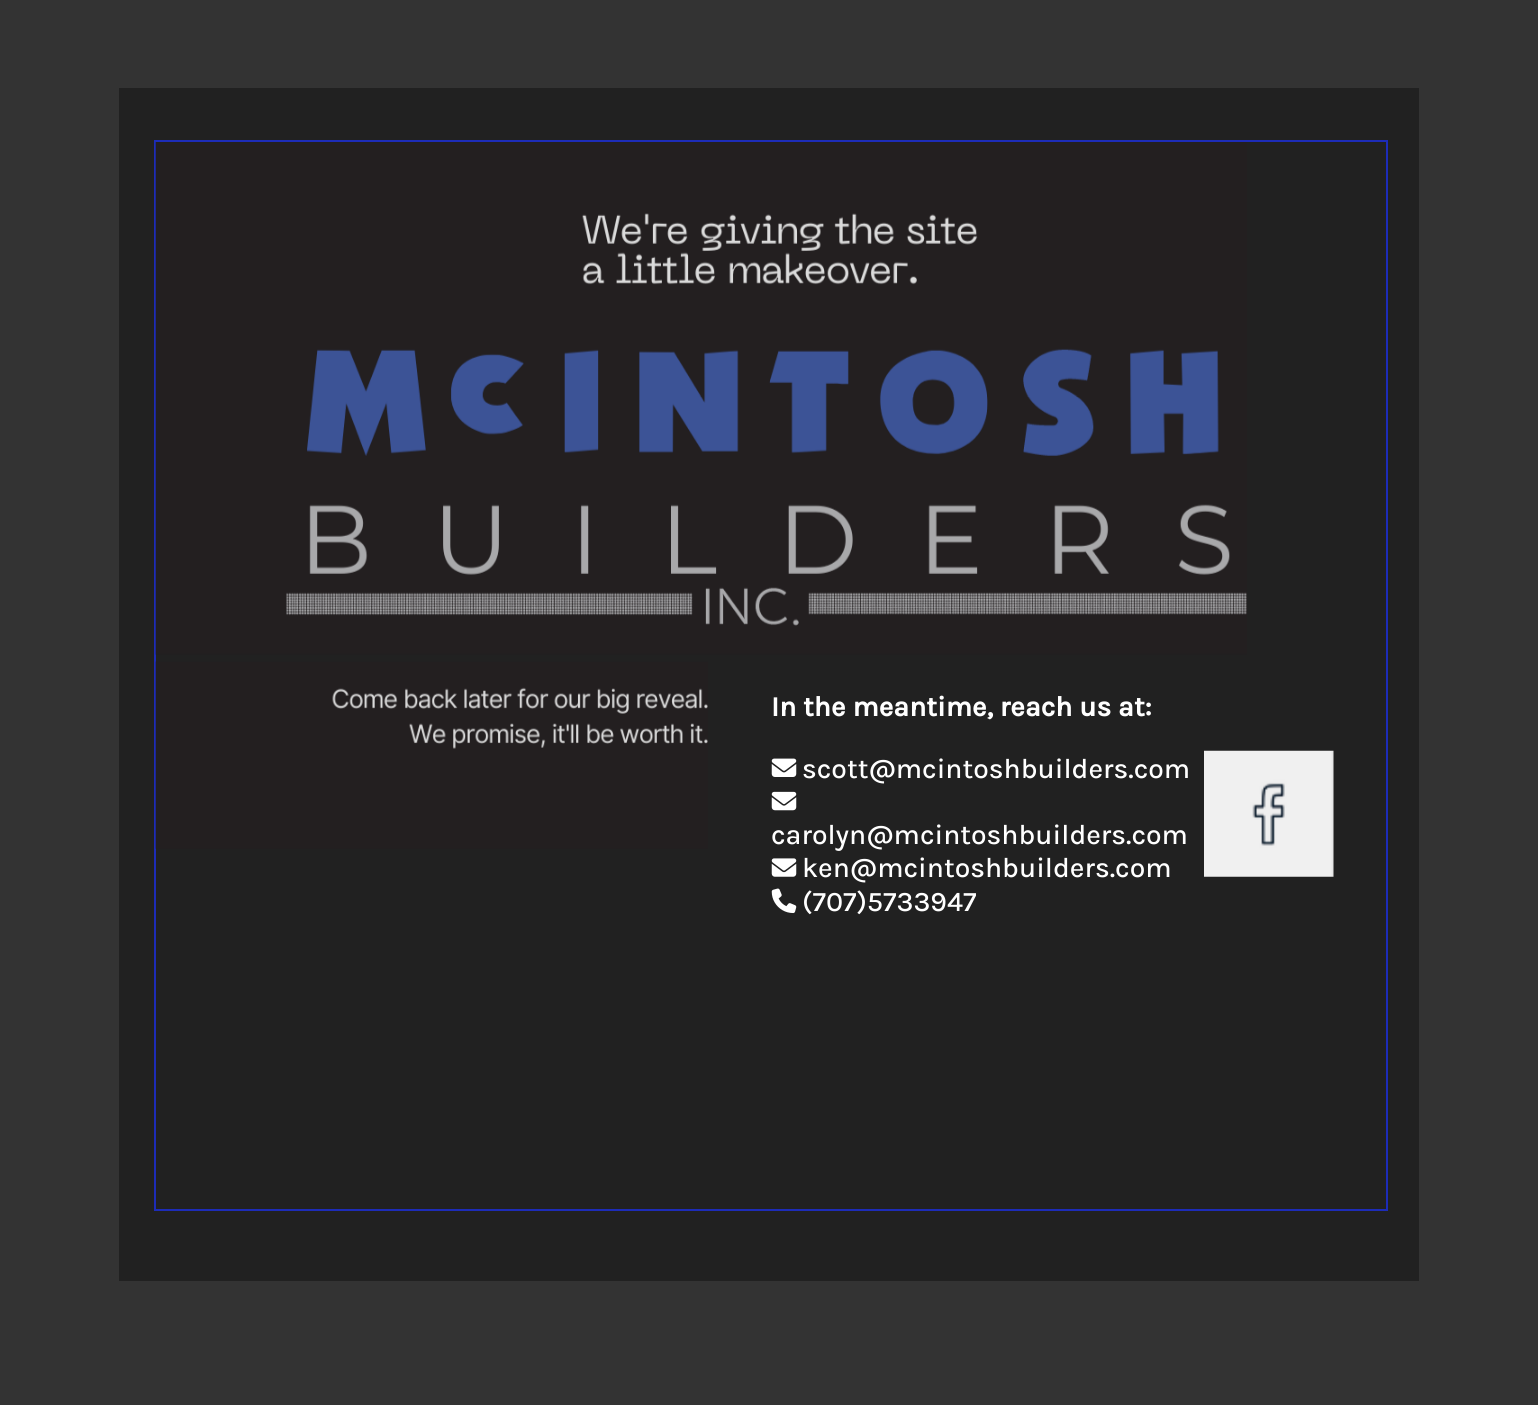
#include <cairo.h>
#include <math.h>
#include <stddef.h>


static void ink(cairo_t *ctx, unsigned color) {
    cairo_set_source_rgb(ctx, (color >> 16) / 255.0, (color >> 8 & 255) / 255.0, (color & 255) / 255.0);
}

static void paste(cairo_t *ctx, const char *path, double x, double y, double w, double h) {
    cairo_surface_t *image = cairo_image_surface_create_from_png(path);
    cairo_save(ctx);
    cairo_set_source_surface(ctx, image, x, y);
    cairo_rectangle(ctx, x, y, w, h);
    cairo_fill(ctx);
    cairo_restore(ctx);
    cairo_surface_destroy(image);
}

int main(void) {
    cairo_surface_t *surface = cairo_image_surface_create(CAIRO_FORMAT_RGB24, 1538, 1405);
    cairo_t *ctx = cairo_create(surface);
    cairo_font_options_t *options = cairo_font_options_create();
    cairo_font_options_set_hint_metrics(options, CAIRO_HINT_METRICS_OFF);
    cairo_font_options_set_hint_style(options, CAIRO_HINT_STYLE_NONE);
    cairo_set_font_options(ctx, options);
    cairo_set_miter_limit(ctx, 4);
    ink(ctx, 0x333333);
    cairo_paint(ctx);
    ink(ctx, 0x212121);
    cairo_rectangle(ctx, 119, 88, 1300, 1193);
    cairo_fill(ctx);
    cairo_rectangle(ctx, 155, 141, 1232, 1069);
    ink(ctx, 0x1D2CB8);
    cairo_stroke(ctx);
    paste(ctx, "media/1.png", 155, 142, 1092, 513);
    paste(ctx, "media/2.png", 155, 661, 553, 188);
    cairo_select_font_face(ctx, "Karla", CAIRO_FONT_SLANT_NORMAL, CAIRO_FONT_WEIGHT_BOLD);
    cairo_set_font_size(ctx, 28);
    ink(ctx, 0xFFFFFF);
    cairo_move_to(ctx, 771, 716);
    cairo_show_text(ctx, "In the meantime, reach us at:");
    paste(ctx, "media/3.png", 771, 758, 26, 19);
    cairo_select_font_face(ctx, "Karla Medium", CAIRO_FONT_SLANT_NORMAL, CAIRO_FONT_WEIGHT_NORMAL);
    cairo_move_to(ctx, 802, 778);
    cairo_show_text(ctx, "scott@mcintoshbuilders.com");
    paste(ctx, "media/4.png", 1204, 750, 130, 127);
    paste(ctx, "media/5.png", 771, 791, 26, 20);
    cairo_move_to(ctx, 771, 844);
    cairo_show_text(ctx, "carolyn@mcintoshbuilders.com");
    paste(ctx, "media/6.png", 771, 858, 26, 19);
    cairo_move_to(ctx, 802, 877);
    cairo_show_text(ctx, "ken@mcintoshbuilders.com");
    paste(ctx, "media/7.png", 771, 888, 26, 26);
    cairo_move_to(ctx, 802, 911);
    cairo_show_text(ctx, "(707)5733947");
    cairo_surface_write_to_png(surface, "image.png");
    cairo_font_options_destroy(options);
    cairo_destroy(ctx);
    cairo_surface_destroy(surface);
    return 0;
}
